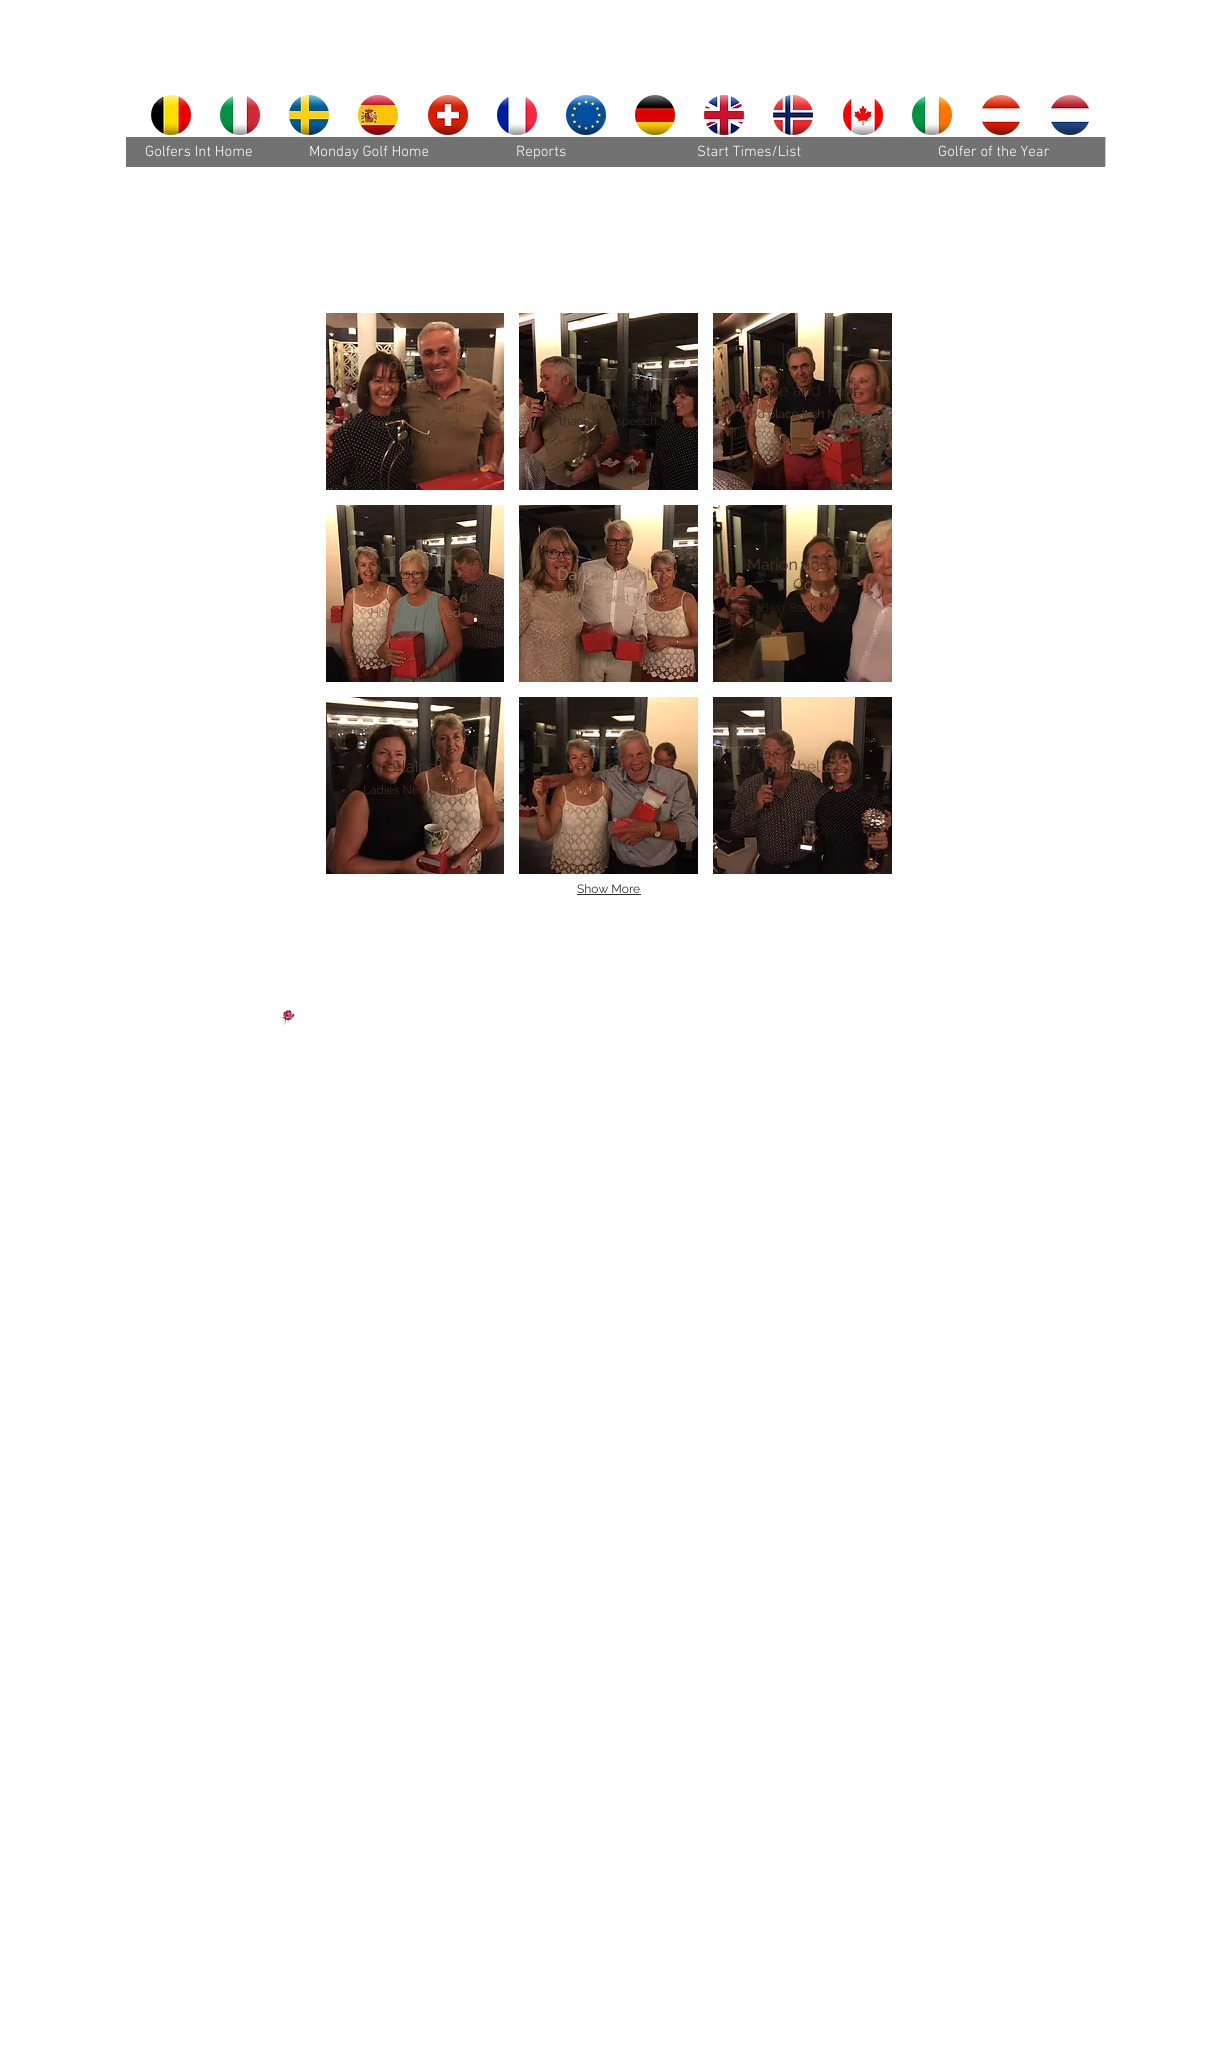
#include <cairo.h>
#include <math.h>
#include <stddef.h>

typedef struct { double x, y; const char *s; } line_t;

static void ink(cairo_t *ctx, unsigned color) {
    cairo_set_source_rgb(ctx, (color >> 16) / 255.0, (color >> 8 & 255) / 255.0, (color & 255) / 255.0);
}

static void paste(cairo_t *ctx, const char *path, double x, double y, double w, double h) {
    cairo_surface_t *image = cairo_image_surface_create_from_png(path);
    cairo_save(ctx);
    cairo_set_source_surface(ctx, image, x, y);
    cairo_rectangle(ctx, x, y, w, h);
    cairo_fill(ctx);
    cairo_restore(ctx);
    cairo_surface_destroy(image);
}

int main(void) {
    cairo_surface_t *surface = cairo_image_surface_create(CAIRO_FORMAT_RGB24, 1231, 2066);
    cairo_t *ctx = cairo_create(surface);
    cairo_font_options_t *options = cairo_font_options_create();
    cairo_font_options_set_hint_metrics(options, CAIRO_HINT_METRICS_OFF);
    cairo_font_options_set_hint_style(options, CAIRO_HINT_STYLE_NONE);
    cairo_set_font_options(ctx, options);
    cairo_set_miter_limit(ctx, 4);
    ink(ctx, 0xFFFFFF);
    cairo_paint(ctx);
    paste(ctx, "media/1.png", 151, 95, 40, 40);
    paste(ctx, "media/2.png", 220, 96, 40, 39);
    paste(ctx, "media/3.png", 289, 95, 40, 40);
    paste(ctx, "media/4.png", 358, 95, 40, 40);
    paste(ctx, "media/5.png", 428, 95, 40, 40);
    paste(ctx, "media/6.png", 497, 97, 40, 38);
    paste(ctx, "media/7.png", 566, 95, 40, 40);
    paste(ctx, "media/8.png", 635, 95, 40, 40);
    paste(ctx, "media/9.png", 704, 95, 40, 40);
    paste(ctx, "media/10.png", 773, 95, 40, 40);
    paste(ctx, "media/11.png", 843, 99, 40, 36);
    paste(ctx, "media/12.png", 912, 96, 40, 39);
    paste(ctx, "media/13.png", 982, 95, 38, 40);
    paste(ctx, "media/14.png", 1051, 95, 38, 40);
    ink(ctx, 0x727272);
    cairo_rectangle(ctx, 126, 137, 979, 30);
    cairo_fill(ctx);
    cairo_select_font_face(ctx, "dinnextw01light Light", CAIRO_FONT_SLANT_NORMAL, CAIRO_FONT_WEIGHT_NORMAL);
    cairo_set_font_size(ctx, 15);
    ink(ctx, 0xFFFFFF);
    {
        static const line_t items[] = {
            {145, 156, "Golfers Int Home"},
            {309, 156, "Monday Golf Home"},
            {516, 156, "Reports"},
            {697, 156, "Start Times/List"},
            {938, 156, "Golfer of the Year"},
        };
        for (size_t i = 0; i < sizeof items / sizeof *items; i++) {
            cairo_move_to(ctx, items[i].x, items[i].y);
            cairo_show_text(ctx, items[i].s);
        }
    }
    ink(ctx, 0xCCCCCC);
    cairo_rectangle(ctx, 1105, 137, 1, 29);
    cairo_fill(ctx);
    paste(ctx, "media/15.png", 326, 313, 178, 177);
    cairo_select_font_face(ctx, "Raleway", CAIRO_FONT_SLANT_NORMAL, CAIRO_FONT_WEIGHT_NORMAL);
    cairo_set_font_size(ctx, 16);
    ink(ctx, 0x673F2F);
    cairo_move_to(ctx, 389, 370);
    cairo_show_text(ctx, "oh");
    ink(ctx, 0x64392A);
    cairo_move_to(ctx, 383, 391);
    cairo_show_text(ctx, "Michelle");
    cairo_set_font_size(ctx, 12);
    ink(ctx, 0x5C3A27);
    cairo_move_to(ctx, 394, 412);
    cairo_show_text(ctx, "a");
    cairo_move_to(ctx, 455, 412);
    cairo_show_text(ctx, "le");
    ink(ctx, 0x533929);
    cairo_move_to(ctx, 371, 428);
    cairo_show_text(ctx, "2017 Irish Mixed");
    ink(ctx, 0x463123);
    cairo_move_to(ctx, 407, 444);
    cairo_show_text(ctx, "n");
    cairo_move_to(ctx, 428, 444);
    cairo_show_text(ctx, "rs");
    paste(ctx, "media/16.png", 519, 313, 179, 177);
    ink(ctx, 0x312219);
    cairo_move_to(ctx, 558, 410);
    cairo_show_text(ctx, "John and Michelle");
    ink(ctx, 0x37291D);
    cairo_move_to(ctx, 559, 425);
    cairo_show_text(ctx, "thank y");
    cairo_move_to(ctx, 616, 425);
    cairo_show_text(ctx, "speech.");
    paste(ctx, "media/17.png", 713, 313, 179, 177);
    cairo_set_font_size(ctx, 16);
    ink(ctx, 0x312219);
    cairo_move_to(ctx, 750, 396);
    cairo_show_text(ctx, "Pepe and Trini");
    cairo_set_font_size(ctx, 12);
    ink(ctx, 0x4A362A);
    cairo_move_to(ctx, 744, 418);
    cairo_show_text(ctx, "2nd place Irish Mixed");
    paste(ctx, "media/18.png", 519, 505, 179, 177);
    cairo_set_font_size(ctx, 16);
    ink(ctx, 0x9C7861);
    cairo_move_to(ctx, 557, 580);
    cairo_show_text(ctx, "Dan and Anita");
    cairo_set_font_size(ctx, 12);
    cairo_move_to(ctx, 556, 602);
    cairo_show_text(ctx, "Winners Best Front");
    paste(ctx, "media/19.png", 713, 505, 179, 177);
    cairo_set_font_size(ctx, 16);
    ink(ctx, 0x463123);
    cairo_move_to(ctx, 747, 570);
    cairo_show_text(ctx, "Marion and Jim");
    ink(ctx, 0x6A5034);
    cairo_move_to(ctx, 793, 590);
    cairo_show_text(ctx, "Co");
    cairo_set_font_size(ctx, 12);
    ink(ctx, 0x301C14);
    cairo_move_to(ctx, 761, 612);
    cairo_show_text(ctx, "Best Back Nine");
    paste(ctx, "media/20.png", 326, 505, 178, 177);
    ink(ctx, 0x7A503B);
    cairo_move_to(ctx, 460, 602);
    cairo_show_text(ctx, "d");
    ink(ctx, 0x846B58);
    cairo_move_to(ctx, 370, 617);
    cairo_show_text(ctx, "Ha");
    cairo_move_to(ctx, 440, 617);
    cairo_show_text(ctx, "xed");
    paste(ctx, "media/21.png", 326, 697, 178, 177);
    cairo_set_font_size(ctx, 16);
    ink(ctx, 0x463123);
    cairo_move_to(ctx, 392, 772);
    cairo_show_text(ctx, "Elaine");
    cairo_set_font_size(ctx, 12);
    ink(ctx, 0x3E271E);
    {
        static const line_t items[] = {
            {363, 794, "Ladies Ne"},
            {429, 794, "e"},
            {449, 794, "the"},
        };
        for (size_t i = 0; i < sizeof items / sizeof *items; i++) {
            cairo_move_to(ctx, items[i].x, items[i].y);
            cairo_show_text(ctx, items[i].s);
        }
    }
    paste(ctx, "media/22.png", 519, 697, 179, 177);
    cairo_set_font_size(ctx, 16);
    ink(ctx, 0x43352D);
    cairo_move_to(ctx, 607, 772);
    cairo_show_text(ctx, "el");
    paste(ctx, "media/23.png", 713, 697, 179, 177);
    ink(ctx, 0x7C5641);
    cairo_move_to(ctx, 771, 772);
    cairo_show_text(ctx, "Michelle");
    cairo_set_font_size(ctx, 12);
    ink(ctx, 0x2F2E2E);
    cairo_move_to(ctx, 577, 893);
    cairo_show_text(ctx, "Show More");
    cairo_rectangle(ctx, 577, 894, 64, 1);
    cairo_fill(ctx);
    paste(ctx, "media/24.png", 280, 1009, 15, 17);
    cairo_surface_write_to_png(surface, "image.png");
    cairo_font_options_destroy(options);
    cairo_destroy(ctx);
    cairo_surface_destroy(surface);
    return 0;
}
